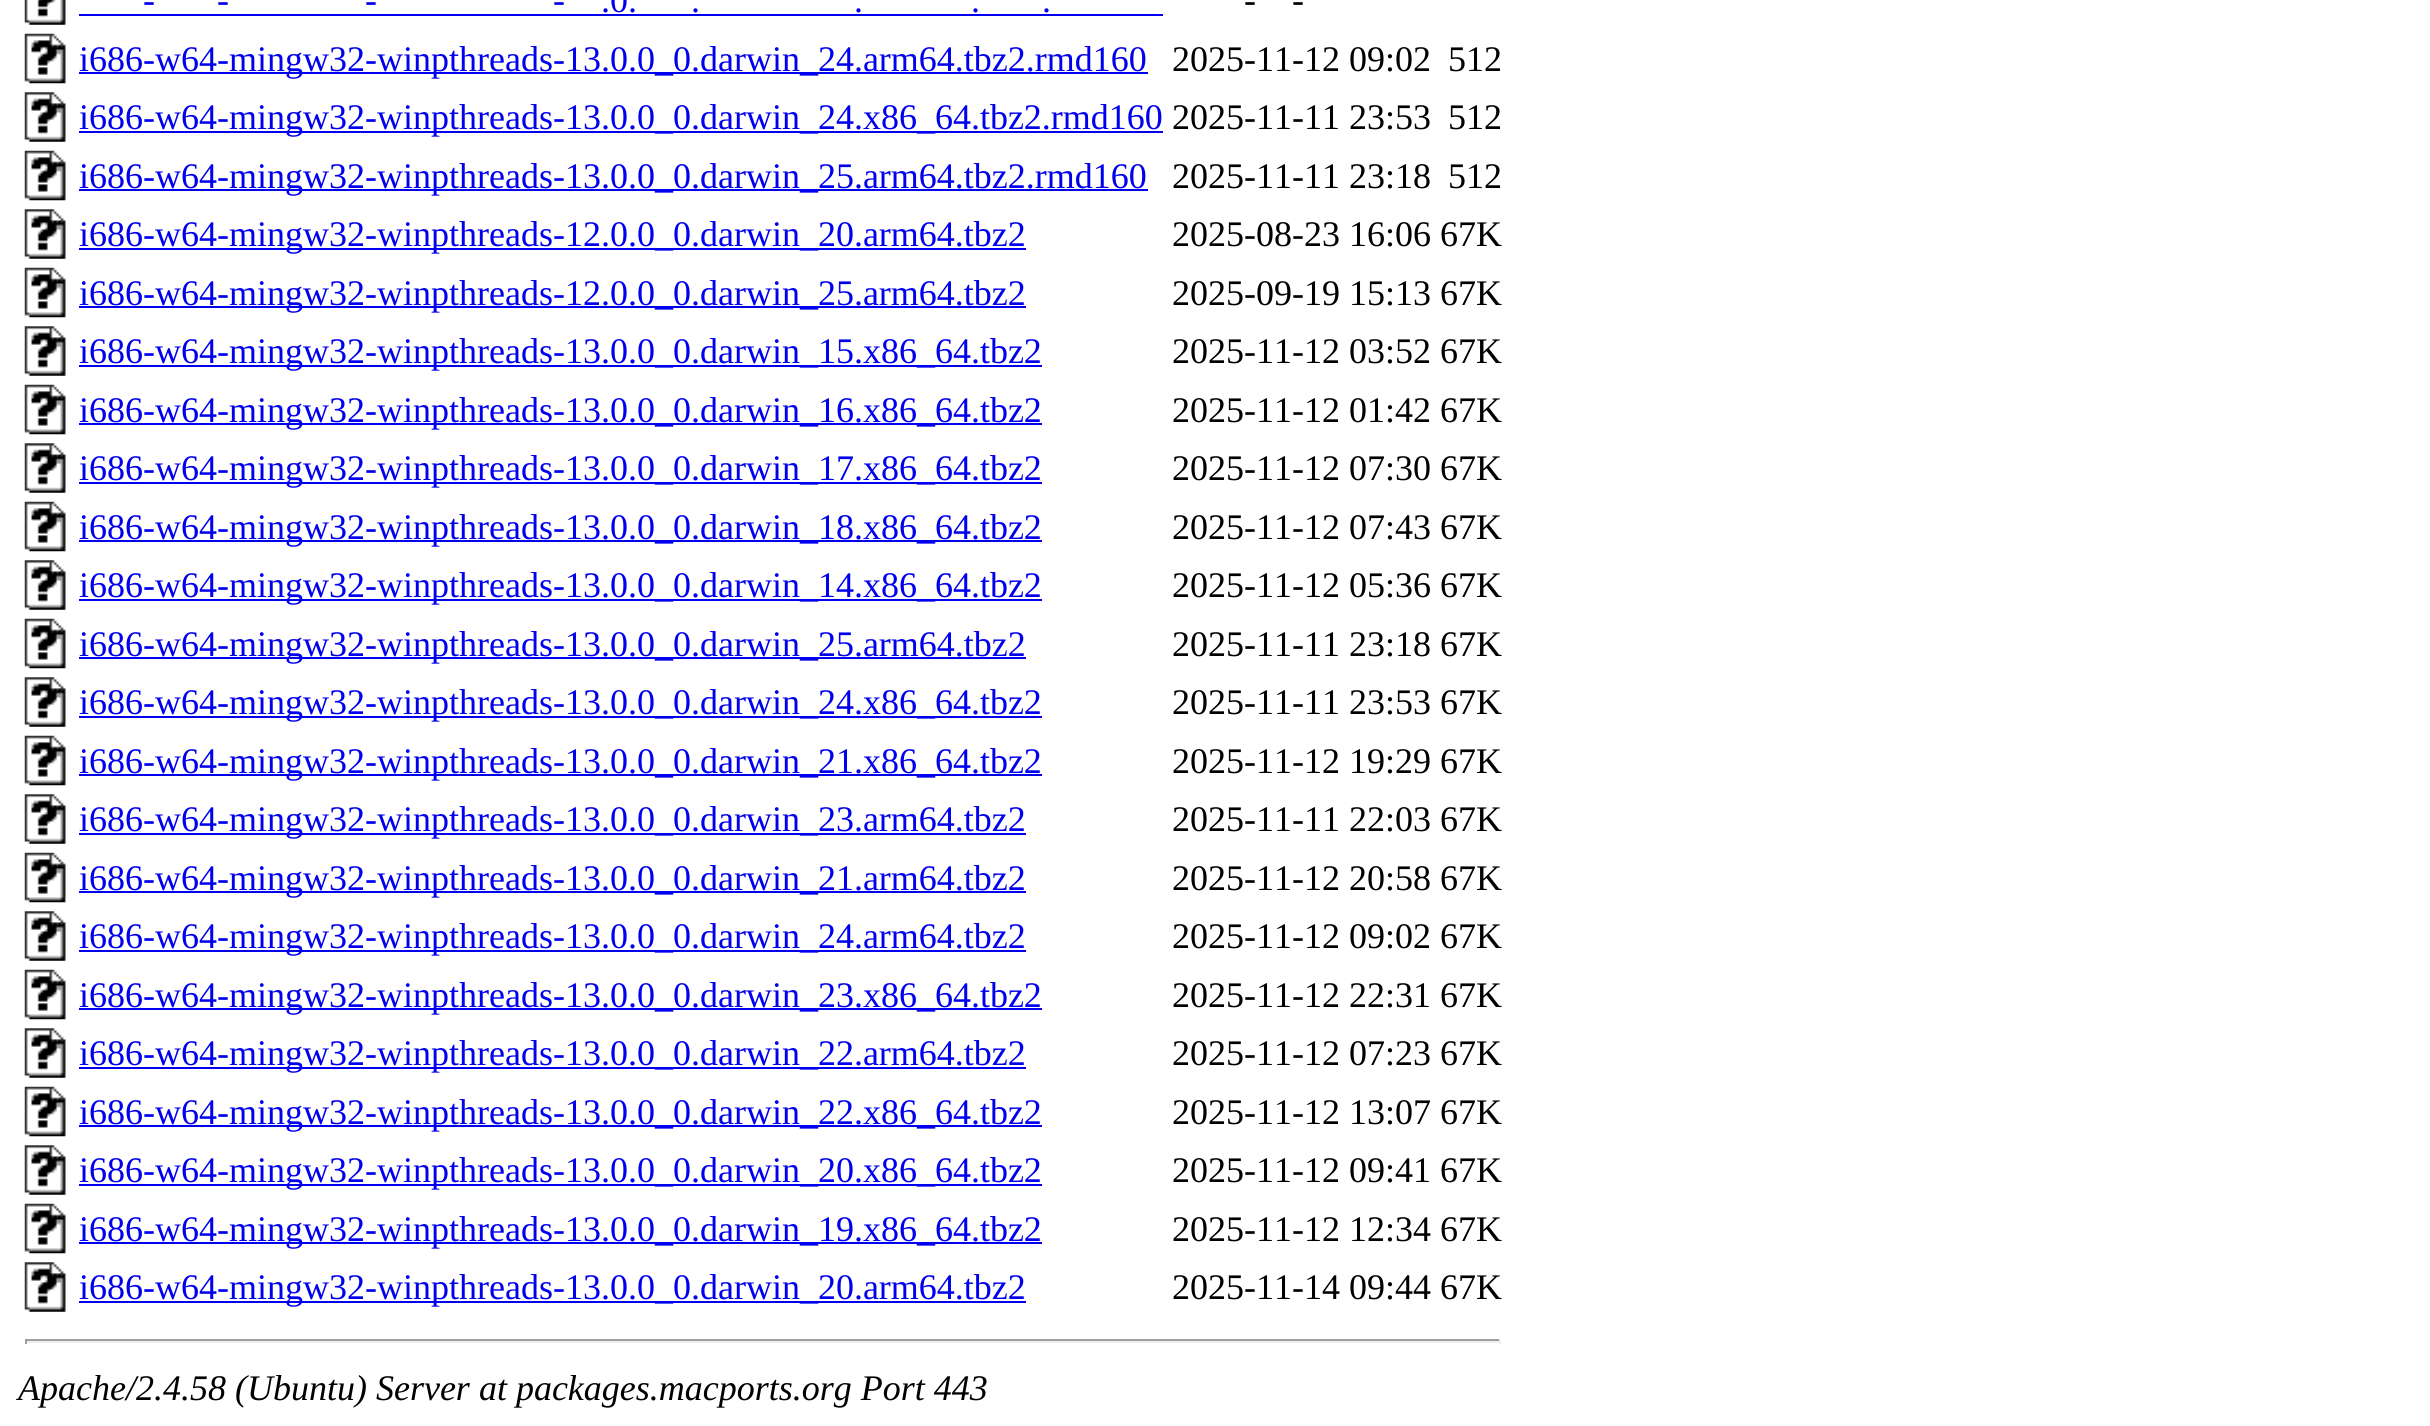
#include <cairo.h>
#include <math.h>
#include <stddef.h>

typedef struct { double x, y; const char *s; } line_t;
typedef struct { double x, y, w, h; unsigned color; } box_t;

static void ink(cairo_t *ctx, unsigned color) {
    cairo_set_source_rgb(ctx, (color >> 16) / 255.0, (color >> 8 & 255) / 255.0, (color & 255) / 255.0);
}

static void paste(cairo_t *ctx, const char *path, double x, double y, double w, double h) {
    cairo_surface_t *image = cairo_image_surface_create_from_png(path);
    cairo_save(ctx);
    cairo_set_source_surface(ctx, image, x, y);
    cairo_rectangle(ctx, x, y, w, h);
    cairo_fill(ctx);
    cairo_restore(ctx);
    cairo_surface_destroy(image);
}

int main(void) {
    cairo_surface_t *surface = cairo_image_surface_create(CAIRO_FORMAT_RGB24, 2430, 1426);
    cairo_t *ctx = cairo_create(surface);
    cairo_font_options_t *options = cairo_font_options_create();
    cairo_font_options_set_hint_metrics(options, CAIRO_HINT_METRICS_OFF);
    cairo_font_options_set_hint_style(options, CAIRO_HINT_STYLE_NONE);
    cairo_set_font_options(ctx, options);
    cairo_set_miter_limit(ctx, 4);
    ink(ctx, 0xFFFFFF);
    cairo_paint(ctx);
    paste(ctx, "media/1.png", 24, 0, 42, 25);
    cairo_select_font_face(ctx, "Liberation Serif", CAIRO_FONT_SLANT_NORMAL, CAIRO_FONT_WEIGHT_NORMAL);
    cairo_set_font_size(ctx, 36);
    ink(ctx, 0x0000EE);
    {
        static const line_t items[] = {
            {143, 12, "-"},
            {217, 12, "-"},
            {365, 12, "-"},
            {553, 12, "-"},
            {601, 12, ".0."},
            {691, 12, "."},
            {854, 12, "."},
            {971, 12, "."},
            {1042, 12, "."},
        };
        for (size_t i = 0; i < sizeof items / sizeof *items; i++) {
            cairo_move_to(ctx, items[i].x, items[i].y);
            cairo_show_text(ctx, items[i].s);
        }
    }
    cairo_rectangle(ctx, 79, 14, 1084, 2);
    cairo_fill(ctx);
    ink(ctx, 0x000000);
    cairo_move_to(ctx, 1244, 12);
    cairo_show_text(ctx, "-");
    cairo_move_to(ctx, 1292, 12);
    cairo_show_text(ctx, "-");
    paste(ctx, "media/2.png", 24, 33, 42, 51);
    ink(ctx, 0x0000EE);
    cairo_rectangle(ctx, 79, 72, 1069, 2);
    cairo_fill(ctx);
    cairo_move_to(ctx, 79, 71);
    cairo_show_text(ctx, "i686-w64-mingw32-winpthreads-13.0.0_0.darwin_24.arm64.tbz2.rmd160");
    ink(ctx, 0x000000);
    cairo_move_to(ctx, 1172, 71);
    cairo_show_text(ctx, "2025-11-12 09:02");
    cairo_move_to(ctx, 1448, 71);
    cairo_show_text(ctx, "512");
    paste(ctx, "media/3.png", 24, 92, 42, 50);
    ink(ctx, 0x0000EE);
    cairo_rectangle(ctx, 79, 131, 1084, 2);
    cairo_fill(ctx);
    cairo_move_to(ctx, 79, 129);
    cairo_show_text(ctx, "i686-w64-mingw32-winpthreads-13.0.0_0.darwin_24.x86_64.tbz2.rmd160");
    ink(ctx, 0x000000);
    cairo_move_to(ctx, 1172, 129);
    cairo_show_text(ctx, "2025-11-11 23:53");
    cairo_move_to(ctx, 1448, 129);
    cairo_show_text(ctx, "512");
    paste(ctx, "media/2.png", 24, 150, 42, 51);
    ink(ctx, 0x0000EE);
    cairo_rectangle(ctx, 79, 189, 1069, 2);
    cairo_fill(ctx);
    cairo_move_to(ctx, 79, 188);
    cairo_show_text(ctx, "i686-w64-mingw32-winpthreads-13.0.0_0.darwin_25.arm64.tbz2.rmd160");
    ink(ctx, 0x000000);
    cairo_move_to(ctx, 1172, 188);
    cairo_show_text(ctx, "2025-11-11 23:18");
    cairo_move_to(ctx, 1448, 188);
    cairo_show_text(ctx, "512");
    paste(ctx, "media/3.png", 24, 209, 42, 50);
    ink(ctx, 0x0000EE);
    cairo_rectangle(ctx, 79, 248, 947, 2);
    cairo_fill(ctx);
    cairo_move_to(ctx, 79, 246);
    cairo_show_text(ctx, "i686-w64-mingw32-winpthreads-12.0.0_0.darwin_20.arm64.tbz2");
    ink(ctx, 0x000000);
    cairo_move_to(ctx, 1172, 246);
    cairo_show_text(ctx, "2025-08-23 16:06 67K");
    paste(ctx, "media/2.png", 24, 267, 42, 51);
    ink(ctx, 0x0000EE);
    cairo_rectangle(ctx, 79, 306, 947, 2);
    cairo_fill(ctx);
    cairo_move_to(ctx, 79, 305);
    cairo_show_text(ctx, "i686-w64-mingw32-winpthreads-12.0.0_0.darwin_25.arm64.tbz2");
    ink(ctx, 0x000000);
    cairo_move_to(ctx, 1172, 305);
    cairo_show_text(ctx, "2025-09-19 15:13 67K");
    paste(ctx, "media/4.png", 24, 326, 42, 50);
    ink(ctx, 0x0000EE);
    cairo_rectangle(ctx, 79, 365, 963, 2);
    cairo_fill(ctx);
    cairo_move_to(ctx, 79, 363);
    cairo_show_text(ctx, "i686-w64-mingw32-winpthreads-13.0.0_0.darwin_15.x86_64.tbz2");
    ink(ctx, 0x000000);
    cairo_move_to(ctx, 1172, 363);
    cairo_show_text(ctx, "2025-11-12 03:52 67K");
    paste(ctx, "media/2.png", 24, 384, 42, 51);
    ink(ctx, 0x0000EE);
    cairo_rectangle(ctx, 79, 423, 963, 2);
    cairo_fill(ctx);
    cairo_move_to(ctx, 79, 422);
    cairo_show_text(ctx, "i686-w64-mingw32-winpthreads-13.0.0_0.darwin_16.x86_64.tbz2");
    ink(ctx, 0x000000);
    cairo_move_to(ctx, 1172, 422);
    cairo_show_text(ctx, "2025-11-12 01:42 67K");
    paste(ctx, "media/5.png", 24, 443, 42, 50);
    ink(ctx, 0x0000EE);
    cairo_rectangle(ctx, 79, 482, 963, 2);
    cairo_fill(ctx);
    cairo_move_to(ctx, 79, 480);
    cairo_show_text(ctx, "i686-w64-mingw32-winpthreads-13.0.0_0.darwin_17.x86_64.tbz2");
    ink(ctx, 0x000000);
    cairo_move_to(ctx, 1172, 480);
    cairo_show_text(ctx, "2025-11-12 07:30 67K");
    paste(ctx, "media/2.png", 24, 501, 42, 51);
    ink(ctx, 0x0000EE);
    cairo_rectangle(ctx, 79, 540, 963, 2);
    cairo_fill(ctx);
    cairo_move_to(ctx, 79, 539);
    cairo_show_text(ctx, "i686-w64-mingw32-winpthreads-13.0.0_0.darwin_18.x86_64.tbz2");
    ink(ctx, 0x000000);
    cairo_move_to(ctx, 1172, 539);
    cairo_show_text(ctx, "2025-11-12 07:43 67K");
    paste(ctx, "media/3.png", 24, 560, 42, 50);
    ink(ctx, 0x0000EE);
    cairo_rectangle(ctx, 79, 599, 963, 2);
    cairo_fill(ctx);
    cairo_move_to(ctx, 79, 597);
    cairo_show_text(ctx, "i686-w64-mingw32-winpthreads-13.0.0_0.darwin_14.x86_64.tbz2");
    ink(ctx, 0x000000);
    cairo_move_to(ctx, 1172, 597);
    cairo_show_text(ctx, "2025-11-12 05:36 67K");
    paste(ctx, "media/2.png", 24, 618, 42, 51);
    ink(ctx, 0x0000EE);
    cairo_rectangle(ctx, 79, 657, 947, 2);
    cairo_fill(ctx);
    cairo_move_to(ctx, 79, 656);
    cairo_show_text(ctx, "i686-w64-mingw32-winpthreads-13.0.0_0.darwin_25.arm64.tbz2");
    ink(ctx, 0x000000);
    cairo_move_to(ctx, 1172, 656);
    cairo_show_text(ctx, "2025-11-11 23:18 67K");
    paste(ctx, "media/3.png", 24, 677, 42, 50);
    ink(ctx, 0x0000EE);
    cairo_rectangle(ctx, 79, 716, 963, 2);
    cairo_fill(ctx);
    cairo_move_to(ctx, 79, 714);
    cairo_show_text(ctx, "i686-w64-mingw32-winpthreads-13.0.0_0.darwin_24.x86_64.tbz2");
    ink(ctx, 0x000000);
    cairo_move_to(ctx, 1172, 714);
    cairo_show_text(ctx, "2025-11-11 23:53 67K");
    paste(ctx, "media/2.png", 24, 735, 42, 51);
    ink(ctx, 0x0000EE);
    cairo_rectangle(ctx, 79, 774, 963, 2);
    cairo_fill(ctx);
    cairo_move_to(ctx, 79, 773);
    cairo_show_text(ctx, "i686-w64-mingw32-winpthreads-13.0.0_0.darwin_21.x86_64.tbz2");
    ink(ctx, 0x000000);
    cairo_move_to(ctx, 1172, 773);
    cairo_show_text(ctx, "2025-11-12 19:29 67K");
    paste(ctx, "media/3.png", 24, 794, 42, 50);
    ink(ctx, 0x0000EE);
    cairo_rectangle(ctx, 79, 833, 947, 2);
    cairo_fill(ctx);
    cairo_move_to(ctx, 79, 831);
    cairo_show_text(ctx, "i686-w64-mingw32-winpthreads-13.0.0_0.darwin_23.arm64.tbz2");
    ink(ctx, 0x000000);
    cairo_move_to(ctx, 1172, 831);
    cairo_show_text(ctx, "2025-11-11 22:03 67K");
    paste(ctx, "media/2.png", 24, 852, 42, 51);
    ink(ctx, 0x0000EE);
    cairo_rectangle(ctx, 79, 891, 947, 2);
    cairo_fill(ctx);
    cairo_move_to(ctx, 79, 890);
    cairo_show_text(ctx, "i686-w64-mingw32-winpthreads-13.0.0_0.darwin_21.arm64.tbz2");
    ink(ctx, 0x000000);
    cairo_move_to(ctx, 1172, 890);
    cairo_show_text(ctx, "2025-11-12 20:58 67K");
    paste(ctx, "media/3.png", 24, 911, 42, 50);
    ink(ctx, 0x0000EE);
    cairo_rectangle(ctx, 79, 950, 947, 2);
    cairo_fill(ctx);
    cairo_move_to(ctx, 79, 948);
    cairo_show_text(ctx, "i686-w64-mingw32-winpthreads-13.0.0_0.darwin_24.arm64.tbz2");
    ink(ctx, 0x000000);
    cairo_move_to(ctx, 1172, 948);
    cairo_show_text(ctx, "2025-11-12 09:02 67K");
    paste(ctx, "media/2.png", 24, 969, 42, 51);
    ink(ctx, 0x0000EE);
    cairo_rectangle(ctx, 79, 1008, 963, 2);
    cairo_fill(ctx);
    cairo_move_to(ctx, 79, 1007);
    cairo_show_text(ctx, "i686-w64-mingw32-winpthreads-13.0.0_0.darwin_23.x86_64.tbz2");
    ink(ctx, 0x000000);
    cairo_move_to(ctx, 1172, 1007);
    cairo_show_text(ctx, "2025-11-12 22:31 67K");
    paste(ctx, "media/3.png", 24, 1028, 42, 50);
    ink(ctx, 0x0000EE);
    cairo_rectangle(ctx, 79, 1067, 947, 2);
    cairo_fill(ctx);
    cairo_move_to(ctx, 79, 1065);
    cairo_show_text(ctx, "i686-w64-mingw32-winpthreads-13.0.0_0.darwin_22.arm64.tbz2");
    ink(ctx, 0x000000);
    cairo_move_to(ctx, 1172, 1065);
    cairo_show_text(ctx, "2025-11-12 07:23 67K");
    paste(ctx, "media/2.png", 24, 1086, 42, 51);
    ink(ctx, 0x0000EE);
    cairo_rectangle(ctx, 79, 1125, 963, 2);
    cairo_fill(ctx);
    cairo_move_to(ctx, 79, 1124);
    cairo_show_text(ctx, "i686-w64-mingw32-winpthreads-13.0.0_0.darwin_22.x86_64.tbz2");
    ink(ctx, 0x000000);
    cairo_move_to(ctx, 1172, 1124);
    cairo_show_text(ctx, "2025-11-12 13:07 67K");
    paste(ctx, "media/3.png", 24, 1145, 42, 50);
    ink(ctx, 0x0000EE);
    cairo_rectangle(ctx, 79, 1184, 963, 2);
    cairo_fill(ctx);
    cairo_move_to(ctx, 79, 1182);
    cairo_show_text(ctx, "i686-w64-mingw32-winpthreads-13.0.0_0.darwin_20.x86_64.tbz2");
    ink(ctx, 0x000000);
    cairo_move_to(ctx, 1172, 1182);
    cairo_show_text(ctx, "2025-11-12 09:41 67K");
    paste(ctx, "media/2.png", 24, 1203, 42, 51);
    ink(ctx, 0x0000EE);
    cairo_rectangle(ctx, 79, 1242, 963, 2);
    cairo_fill(ctx);
    cairo_move_to(ctx, 79, 1241);
    cairo_show_text(ctx, "i686-w64-mingw32-winpthreads-13.0.0_0.darwin_19.x86_64.tbz2");
    ink(ctx, 0x000000);
    cairo_move_to(ctx, 1172, 1241);
    cairo_show_text(ctx, "2025-11-12 12:34 67K");
    paste(ctx, "media/3.png", 24, 1262, 42, 50);
    ink(ctx, 0x0000EE);
    cairo_rectangle(ctx, 79, 1301, 947, 2);
    cairo_fill(ctx);
    cairo_move_to(ctx, 79, 1299);
    cairo_show_text(ctx, "i686-w64-mingw32-winpthreads-13.0.0_0.darwin_20.arm64.tbz2");
    ink(ctx, 0x000000);
    cairo_move_to(ctx, 1172, 1299);
    cairo_show_text(ctx, "2025-11-14 09:44 67K");
    {
        static const box_t items[] = {
            {25, 1339, 1476, 2, 0x9F9F9F},
            {1499, 1339, 2, 5, 0xEEEEEE},
            {25, 1341, 1476, 2, 0xEEEEEE},
            {25, 1339, 2, 5, 0x9F9F9F},
        };
        for (size_t i = 0; i < sizeof items / sizeof *items; i++) {
            ink(ctx, items[i].color);
            cairo_rectangle(ctx, items[i].x, items[i].y, items[i].w, items[i].h);
            cairo_fill(ctx);
        }
    }
    cairo_select_font_face(ctx, "Liberation Serif", CAIRO_FONT_SLANT_ITALIC, CAIRO_FONT_WEIGHT_NORMAL);
    ink(ctx, 0x000000);
    cairo_move_to(ctx, 18, 1400);
    cairo_show_text(ctx, "Apache/2.4.58 (Ubuntu) Server at packages.macports.org Port 443");
    cairo_surface_write_to_png(surface, "image.png");
    cairo_font_options_destroy(options);
    cairo_destroy(ctx);
    cairo_surface_destroy(surface);
    return 0;
}
